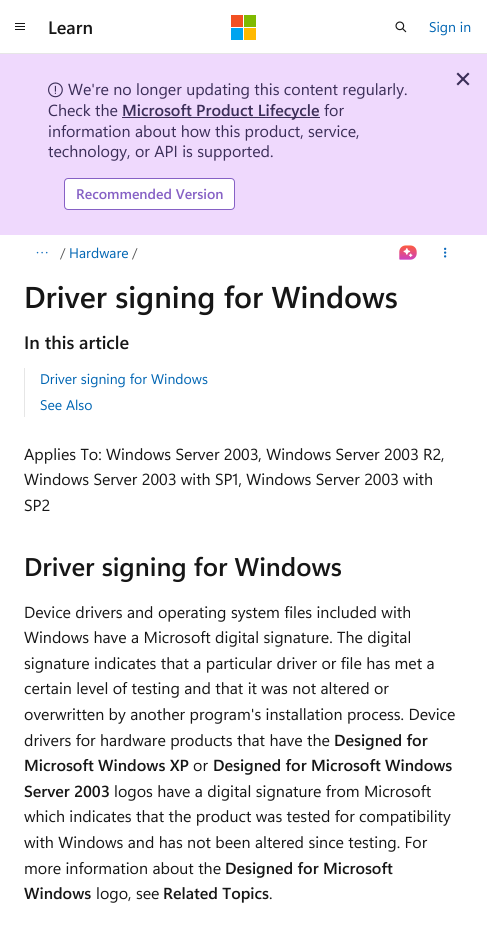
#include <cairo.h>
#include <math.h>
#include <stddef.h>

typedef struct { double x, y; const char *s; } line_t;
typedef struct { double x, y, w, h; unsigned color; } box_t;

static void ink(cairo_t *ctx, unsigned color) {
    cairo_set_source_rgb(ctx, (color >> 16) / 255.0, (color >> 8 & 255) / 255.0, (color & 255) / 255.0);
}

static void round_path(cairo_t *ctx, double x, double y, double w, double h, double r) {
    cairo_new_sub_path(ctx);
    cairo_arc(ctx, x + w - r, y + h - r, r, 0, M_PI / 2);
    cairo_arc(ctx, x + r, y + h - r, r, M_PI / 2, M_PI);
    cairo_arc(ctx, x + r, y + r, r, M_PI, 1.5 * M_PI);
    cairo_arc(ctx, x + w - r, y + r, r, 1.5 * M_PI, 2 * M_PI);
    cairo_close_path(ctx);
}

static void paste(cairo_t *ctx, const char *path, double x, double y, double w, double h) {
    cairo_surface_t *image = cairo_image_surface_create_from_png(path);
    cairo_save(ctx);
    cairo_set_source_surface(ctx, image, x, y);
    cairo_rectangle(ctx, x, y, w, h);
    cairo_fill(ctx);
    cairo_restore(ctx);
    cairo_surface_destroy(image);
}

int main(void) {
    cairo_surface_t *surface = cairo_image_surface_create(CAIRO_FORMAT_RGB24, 487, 936);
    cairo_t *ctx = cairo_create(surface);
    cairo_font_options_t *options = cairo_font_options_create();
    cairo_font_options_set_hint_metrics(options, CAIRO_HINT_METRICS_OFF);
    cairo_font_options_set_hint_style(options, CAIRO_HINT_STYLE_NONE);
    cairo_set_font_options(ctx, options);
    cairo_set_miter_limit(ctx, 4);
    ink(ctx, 0xFFFFFF);
    cairo_paint(ctx);
    ink(ctx, 0xE6E6E6);
    cairo_rectangle(ctx, 0, 53, 487, 1);
    cairo_fill(ctx);
    paste(ctx, "media/1.png", 15, 23, 10, 7);
    cairo_select_font_face(ctx, "Segoe UI SemiBold", CAIRO_FONT_SLANT_NORMAL, CAIRO_FONT_WEIGHT_NORMAL);
    cairo_set_font_size(ctx, 18);
    ink(ctx, 0x161616);
    cairo_move_to(ctx, 48, 34);
    cairo_show_text(ctx, "Learn");
    {
        static const box_t items[] = {
            {231, 15, 12, 12, 0xF25022},
            {244, 15, 12, 12, 0x7FBA00},
            {231, 28, 12, 12, 0x00A4EF},
            {244, 28, 12, 12, 0xFFB900},
        };
        for (size_t i = 0; i < sizeof items / sizeof *items; i++) {
            ink(ctx, items[i].color);
            cairo_rectangle(ctx, items[i].x, items[i].y, items[i].w, items[i].h);
            cairo_fill(ctx);
        }
    }
    paste(ctx, "media/2.png", 395, 21, 12, 12);
    cairo_select_font_face(ctx, "Segoe UI", CAIRO_FONT_SLANT_NORMAL, CAIRO_FONT_WEIGHT_NORMAL);
    cairo_set_font_size(ctx, 14);
    ink(ctx, 0x0065B3);
    cairo_move_to(ctx, 429, 32);
    cairo_show_text(ctx, "Sign in");
    ink(ctx, 0xEFD9FD);
    cairo_rectangle(ctx, 0, 54, 487, 181);
    cairo_fill(ctx);
    ink(ctx, 0x3B2E58);
    cairo_new_path(ctx);
    cairo_move_to(ctx, 458, 72.5);
    cairo_line_to(ctx, 469.5, 84);
    cairo_line_to(ctx, 468, 85.5);
    cairo_line_to(ctx, 456.5, 74);
    cairo_close_path(ctx);
    cairo_fill(ctx);
    cairo_new_path(ctx);
    cairo_move_to(ctx, 468, 72.5);
    cairo_line_to(ctx, 469.5, 74);
    cairo_line_to(ctx, 458, 85.5);
    cairo_line_to(ctx, 456.5, 84);
    cairo_close_path(ctx);
    cairo_fill(ctx);
    paste(ctx, "media/3.png", 48, 82, 15, 16);
    cairo_set_font_size(ctx, 16);
    cairo_move_to(ctx, 68, 95);
    cairo_show_text(ctx, "We're no longer updating this content regularly.");
    cairo_move_to(ctx, 48, 116);
    cairo_show_text(ctx, "Check the");
    cairo_rectangle(ctx, 122, 117, 198, 1);
    cairo_fill(ctx);
    cairo_select_font_face(ctx, "Segoe UI SemiBold", CAIRO_FONT_SLANT_NORMAL, CAIRO_FONT_WEIGHT_NORMAL);
    cairo_move_to(ctx, 122, 116);
    cairo_show_text(ctx, "Microsoft Product Lifecycle");
    cairo_select_font_face(ctx, "Segoe UI", CAIRO_FONT_SLANT_NORMAL, CAIRO_FONT_WEIGHT_NORMAL);
    {
        static const line_t items[] = {
            {324, 116, "for"},
            {48, 137, "information about how this product, service,"},
            {48, 157, "technology, or API is supported."},
        };
        for (size_t i = 0; i < sizeof items / sizeof *items; i++) {
            cairo_move_to(ctx, items[i].x, items[i].y);
            cairo_show_text(ctx, items[i].s);
        }
    }
    ink(ctx, 0xFFFFFF);
    round_path(ctx, 64.5, 178.5, 170, 31, 3.5);
    cairo_fill_preserve(ctx);
    ink(ctx, 0x8661C5);
    cairo_set_line_width(ctx, 1);
    cairo_stroke(ctx);
    cairo_select_font_face(ctx, "Segoe UI SemiBold", CAIRO_FONT_SLANT_NORMAL, CAIRO_FONT_WEIGHT_NORMAL);
    cairo_set_font_size(ctx, 14);
    cairo_move_to(ctx, 76, 199);
    cairo_show_text(ctx, "Recommended Version");
    paste(ctx, "media/4.png", 36, 251, 12, 3);
    cairo_select_font_face(ctx, "Segoe UI", CAIRO_FONT_SLANT_NORMAL, CAIRO_FONT_WEIGHT_NORMAL);
    ink(ctx, 0x505050);
    cairo_move_to(ctx, 60, 258);
    cairo_show_text(ctx, "/");
    ink(ctx, 0x0065B3);
    cairo_move_to(ctx, 69, 258);
    cairo_show_text(ctx, "Hardware");
    ink(ctx, 0x505050);
    cairo_move_to(ctx, 132, 258);
    cairo_show_text(ctx, "/");
    paste(ctx, "media/5.png", 399, 245, 18, 15);
    paste(ctx, "media/6.png", 444, 247, 3, 11);
    cairo_select_font_face(ctx, "Segoe UI SemiBold", CAIRO_FONT_SLANT_NORMAL, CAIRO_FONT_WEIGHT_NORMAL);
    cairo_set_font_size(ctx, 30.1);
    ink(ctx, 0x161616);
    cairo_move_to(ctx, 24, 308);
    cairo_show_text(ctx, "Driver signing for Windows");
    cairo_set_font_size(ctx, 18);
    cairo_move_to(ctx, 24, 349);
    cairo_show_text(ctx, "In this article");
    ink(ctx, 0xE6E6E6);
    cairo_rectangle(ctx, 24, 368, 1, 49);
    cairo_fill(ctx);
    cairo_select_font_face(ctx, "Segoe UI", CAIRO_FONT_SLANT_NORMAL, CAIRO_FONT_WEIGHT_NORMAL);
    cairo_set_font_size(ctx, 14);
    ink(ctx, 0x0065B3);
    cairo_move_to(ctx, 40, 384);
    cairo_show_text(ctx, "Driver signing for Windows");
    cairo_move_to(ctx, 40, 410);
    cairo_show_text(ctx, "See Also");
    cairo_set_font_size(ctx, 16);
    ink(ctx, 0x161616);
    {
        static const line_t items[] = {
            {24, 460, "Applies To: Windows Server 2003, Windows Server 2003 R2,"},
            {24, 485, "Windows Server 2003 with SP1, Windows Server 2003 with"},
            {24, 511, "SP2"},
        };
        for (size_t i = 0; i < sizeof items / sizeof *items; i++) {
            cairo_move_to(ctx, items[i].x, items[i].y);
            cairo_show_text(ctx, items[i].s);
        }
    }
    cairo_select_font_face(ctx, "Segoe UI SemiBold", CAIRO_FONT_SLANT_NORMAL, CAIRO_FONT_WEIGHT_NORMAL);
    cairo_set_font_size(ctx, 25.6);
    cairo_move_to(ctx, 24, 576);
    cairo_show_text(ctx, "Driver signing for Windows");
    cairo_select_font_face(ctx, "Segoe UI", CAIRO_FONT_SLANT_NORMAL, CAIRO_FONT_WEIGHT_NORMAL);
    cairo_set_font_size(ctx, 16);
    {
        static const line_t items[] = {
            {24, 618, "Device drivers and operating system files included with"},
            {24, 643, "Windows have a Microsoft digital signature. The digital"},
            {24, 669, "signature indicates that a particular driver or file has met a"},
            {24, 694, "certain level of testing and that it was not altered or"},
            {24, 720, "overwritten by another program's installation process. Device"},
            {24, 746, "drivers for hardware products that have the"},
        };
        for (size_t i = 0; i < sizeof items / sizeof *items; i++) {
            cairo_move_to(ctx, items[i].x, items[i].y);
            cairo_show_text(ctx, items[i].s);
        }
    }
    cairo_select_font_face(ctx, "Segoe UI SemiBold", CAIRO_FONT_SLANT_NORMAL, CAIRO_FONT_WEIGHT_NORMAL);
    cairo_move_to(ctx, 334, 746);
    cairo_show_text(ctx, "Designed for");
    cairo_move_to(ctx, 24, 771);
    cairo_show_text(ctx, "Microsoft Windows XP");
    cairo_select_font_face(ctx, "Segoe UI", CAIRO_FONT_SLANT_NORMAL, CAIRO_FONT_WEIGHT_NORMAL);
    cairo_move_to(ctx, 193, 771);
    cairo_show_text(ctx, "or");
    cairo_select_font_face(ctx, "Segoe UI SemiBold", CAIRO_FONT_SLANT_NORMAL, CAIRO_FONT_WEIGHT_NORMAL);
    cairo_move_to(ctx, 213, 771);
    cairo_show_text(ctx, "Designed for Microsoft Windows");
    cairo_move_to(ctx, 24, 797);
    cairo_show_text(ctx, "Server 2003");
    cairo_select_font_face(ctx, "Segoe UI", CAIRO_FONT_SLANT_NORMAL, CAIRO_FONT_WEIGHT_NORMAL);
    {
        static const line_t items[] = {
            {114, 797, "logos have a digital signature from Microsoft"},
            {24, 822, "which indicates that the product was tested for compatibility"},
            {24, 848, "with Windows and has not been altered since testing. For"},
            {24, 874, "more information about the"},
        };
        for (size_t i = 0; i < sizeof items / sizeof *items; i++) {
            cairo_move_to(ctx, items[i].x, items[i].y);
            cairo_show_text(ctx, items[i].s);
        }
    }
    cairo_select_font_face(ctx, "Segoe UI SemiBold", CAIRO_FONT_SLANT_NORMAL, CAIRO_FONT_WEIGHT_NORMAL);
    cairo_move_to(ctx, 225, 874);
    cairo_show_text(ctx, "Designed for Microsoft");
    cairo_move_to(ctx, 24, 899);
    cairo_show_text(ctx, "Windows");
    cairo_select_font_face(ctx, "Segoe UI", CAIRO_FONT_SLANT_NORMAL, CAIRO_FONT_WEIGHT_NORMAL);
    cairo_move_to(ctx, 96, 899);
    cairo_show_text(ctx, "logo, see");
    cairo_select_font_face(ctx, "Segoe UI SemiBold", CAIRO_FONT_SLANT_NORMAL, CAIRO_FONT_WEIGHT_NORMAL);
    cairo_move_to(ctx, 163, 899);
    cairo_show_text(ctx, "Related Topics");
    cairo_select_font_face(ctx, "Segoe UI", CAIRO_FONT_SLANT_NORMAL, CAIRO_FONT_WEIGHT_NORMAL);
    cairo_move_to(ctx, 269, 899);
    cairo_show_text(ctx, ".");
    cairo_surface_write_to_png(surface, "image.png");
    cairo_font_options_destroy(options);
    cairo_destroy(ctx);
    cairo_surface_destroy(surface);
    return 0;
}
